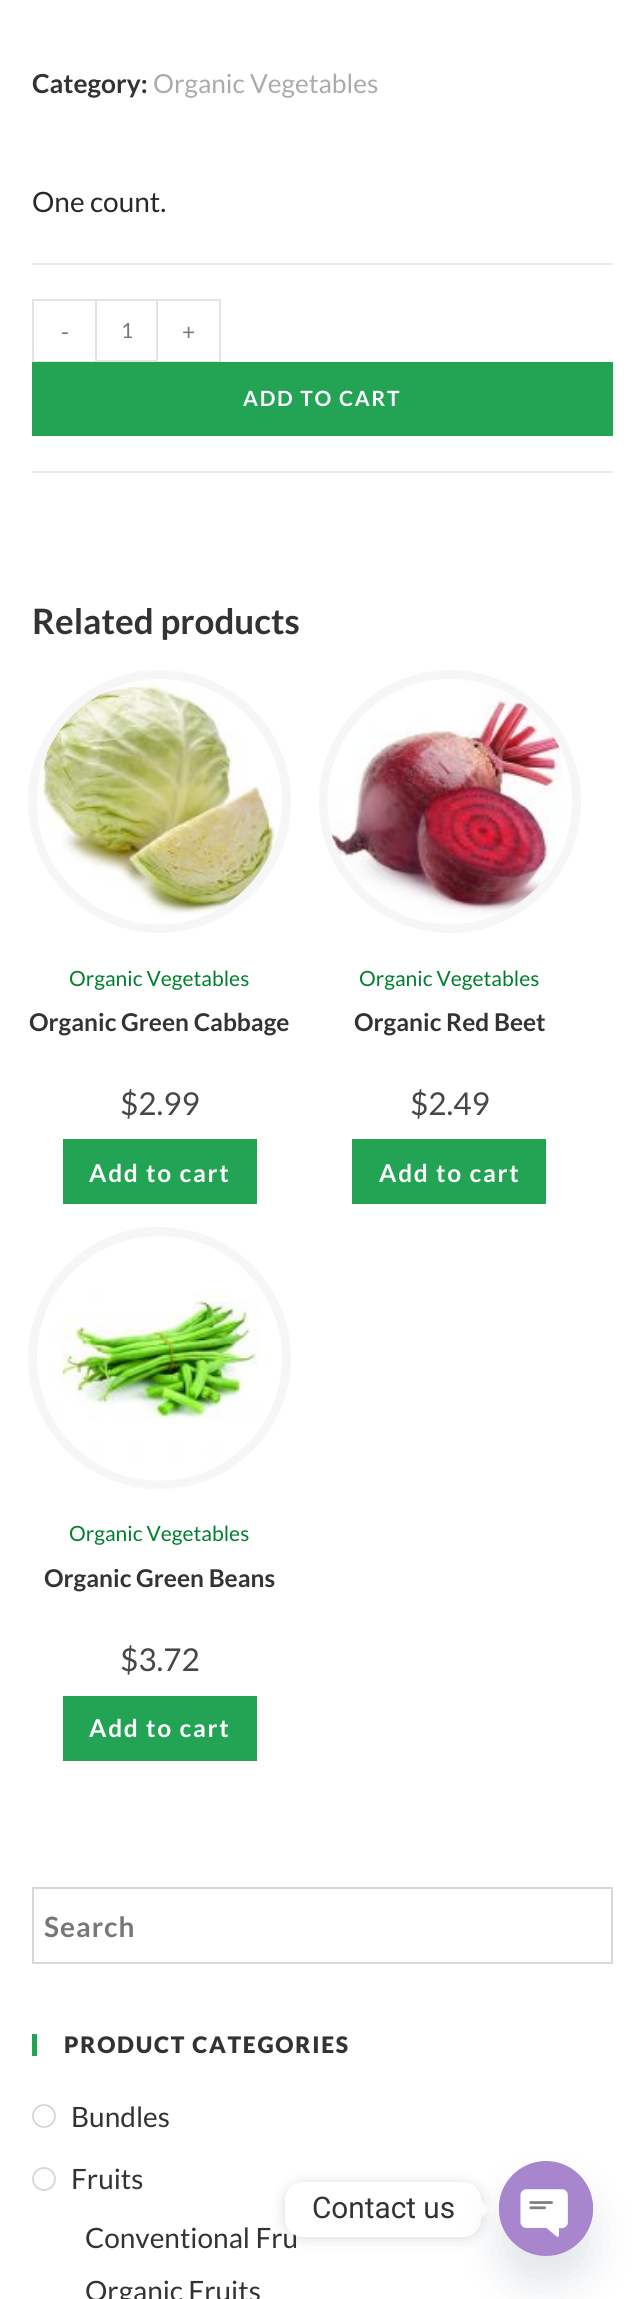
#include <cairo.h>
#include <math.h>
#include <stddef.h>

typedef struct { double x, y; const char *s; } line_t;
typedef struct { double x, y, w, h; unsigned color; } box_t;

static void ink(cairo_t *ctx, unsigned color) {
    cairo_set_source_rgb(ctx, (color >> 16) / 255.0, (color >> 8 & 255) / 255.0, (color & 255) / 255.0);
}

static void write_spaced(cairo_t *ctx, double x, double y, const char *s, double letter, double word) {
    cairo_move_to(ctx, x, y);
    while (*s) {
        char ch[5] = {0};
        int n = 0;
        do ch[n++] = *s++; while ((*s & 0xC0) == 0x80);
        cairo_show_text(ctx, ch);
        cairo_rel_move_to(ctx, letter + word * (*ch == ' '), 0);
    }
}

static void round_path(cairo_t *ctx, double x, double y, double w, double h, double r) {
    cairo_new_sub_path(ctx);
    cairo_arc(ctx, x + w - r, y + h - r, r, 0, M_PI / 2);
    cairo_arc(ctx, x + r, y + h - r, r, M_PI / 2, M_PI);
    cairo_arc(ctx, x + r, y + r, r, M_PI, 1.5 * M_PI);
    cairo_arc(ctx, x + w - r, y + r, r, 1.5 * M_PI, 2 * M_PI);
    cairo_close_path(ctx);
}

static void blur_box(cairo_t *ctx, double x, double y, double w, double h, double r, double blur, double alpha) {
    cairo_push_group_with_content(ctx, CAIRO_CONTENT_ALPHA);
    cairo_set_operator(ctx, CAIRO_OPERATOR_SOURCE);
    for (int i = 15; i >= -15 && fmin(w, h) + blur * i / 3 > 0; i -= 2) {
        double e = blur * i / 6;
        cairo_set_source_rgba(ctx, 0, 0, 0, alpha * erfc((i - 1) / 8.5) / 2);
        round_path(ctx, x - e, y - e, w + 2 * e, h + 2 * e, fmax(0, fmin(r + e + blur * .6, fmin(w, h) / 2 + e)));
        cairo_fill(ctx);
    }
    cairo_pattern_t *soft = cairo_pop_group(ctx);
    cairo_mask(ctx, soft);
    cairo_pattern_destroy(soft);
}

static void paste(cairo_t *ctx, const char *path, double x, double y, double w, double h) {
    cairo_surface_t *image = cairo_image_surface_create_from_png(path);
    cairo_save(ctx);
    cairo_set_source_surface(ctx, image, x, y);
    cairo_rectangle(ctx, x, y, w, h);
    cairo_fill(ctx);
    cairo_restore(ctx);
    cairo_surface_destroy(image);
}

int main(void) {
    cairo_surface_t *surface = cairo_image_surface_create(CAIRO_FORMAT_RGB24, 643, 2299);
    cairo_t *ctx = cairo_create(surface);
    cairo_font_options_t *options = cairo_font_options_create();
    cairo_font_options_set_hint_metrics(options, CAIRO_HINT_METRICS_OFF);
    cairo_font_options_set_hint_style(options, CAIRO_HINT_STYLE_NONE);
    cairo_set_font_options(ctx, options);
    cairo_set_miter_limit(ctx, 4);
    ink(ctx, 0xFFFFFF);
    cairo_paint(ctx);
    cairo_select_font_face(ctx, "Lato", CAIRO_FONT_SLANT_NORMAL, CAIRO_FONT_WEIGHT_BOLD);
    cairo_set_font_size(ctx, 26.25);
    ink(ctx, 0x333333);
    cairo_move_to(ctx, 32, 93);
    cairo_show_text(ctx, "Category:");
    cairo_select_font_face(ctx, "Lato", CAIRO_FONT_SLANT_NORMAL, CAIRO_FONT_WEIGHT_NORMAL);
    ink(ctx, 0xABABAB);
    cairo_move_to(ctx, 153, 93);
    cairo_show_text(ctx, "Organic Vegetables");
    cairo_set_font_size(ctx, 28);
    ink(ctx, 0x282828);
    cairo_move_to(ctx, 32, 212);
    cairo_show_text(ctx, "One count.");
    {
        static const box_t items[] = {
            {32, 263, 581, 2, 0xEAEAEA},
            {32, 471, 581, 2, 0xEAEAEA},
            {32, 299, 63, 2, 0xE4E4E4},
            {32, 361, 63, 1, 0xE4E4E4},
            {32, 299, 2, 63, 0xE4E4E4},
        };
        for (size_t i = 0; i < sizeof items / sizeof *items; i++) {
            ink(ctx, items[i].color);
            cairo_rectangle(ctx, items[i].x, items[i].y, items[i].w, items[i].h);
            cairo_fill(ctx);
        }
    }
    cairo_set_font_size(ctx, 22.75);
    ink(ctx, 0x777777);
    cairo_move_to(ctx, 61, 340);
    cairo_show_text(ctx, "-");
    cairo_rectangle(ctx, 96, 300, 61, 61);
    ink(ctx, 0xE4E4E4);
    cairo_stroke(ctx);
    cairo_set_font_size(ctx, 21);
    ink(ctx, 0x777777);
    cairo_move_to(ctx, 121, 338);
    cairo_show_text(ctx, "1");
    {
        static const box_t items[] = {
            {158, 299, 63, 2, 0xE4E4E4},
            {219, 299, 2, 63, 0xE4E4E4},
            {158, 361, 63, 1, 0xE4E4E4},
        };
        for (size_t i = 0; i < sizeof items / sizeof *items; i++) {
            ink(ctx, items[i].color);
            cairo_rectangle(ctx, items[i].x, items[i].y, items[i].w, items[i].h);
            cairo_fill(ctx);
        }
    }
    cairo_set_font_size(ctx, 22.75);
    ink(ctx, 0x777777);
    cairo_move_to(ctx, 182, 340);
    cairo_show_text(ctx, "+");
    ink(ctx, 0x23A455);
    cairo_rectangle(ctx, 32, 362, 581, 74);
    cairo_fill(ctx);
    cairo_select_font_face(ctx, "Lato", CAIRO_FONT_SLANT_NORMAL, CAIRO_FONT_WEIGHT_BOLD);
    cairo_set_font_size(ctx, 21);
    ink(ctx, 0xFFFFFF);
    write_spaced(ctx, 243, 406, "ADD TO CART", 1.75, 0);
    cairo_set_font_size(ctx, 35);
    ink(ctx, 0x333333);
    cairo_move_to(ctx, 32, 634);
    cairo_show_text(ctx, "Related products");
    cairo_new_path(ctx);
    cairo_arc(ctx, 159.5, 801.5, 127, 0, 2 * M_PI);
    ink(ctx, 0xF6F6F6);
    cairo_set_line_width(ctx, 9);
    cairo_stroke(ctx);
    paste(ctx, "media/1.png", 38, 680, 237, 244);
    cairo_select_font_face(ctx, "Lato", CAIRO_FONT_SLANT_NORMAL, CAIRO_FONT_WEIGHT_NORMAL);
    cairo_set_font_size(ctx, 21);
    ink(ctx, 0x007F2E);
    cairo_move_to(ctx, 69, 986);
    cairo_show_text(ctx, "Organic Vegetables");
    cairo_select_font_face(ctx, "Lato", CAIRO_FONT_SLANT_NORMAL, CAIRO_FONT_WEIGHT_BOLD);
    cairo_set_font_size(ctx, 24.5);
    ink(ctx, 0x333333);
    cairo_move_to(ctx, 29, 1031);
    cairo_show_text(ctx, "Organic Green Cabbage");
    cairo_select_font_face(ctx, "Lato", CAIRO_FONT_SLANT_NORMAL, CAIRO_FONT_WEIGHT_NORMAL);
    cairo_set_font_size(ctx, 31.5);
    ink(ctx, 0x46474B);
    cairo_move_to(ctx, 120, 1115);
    cairo_show_text(ctx, "$2.99");
    ink(ctx, 0x23A455);
    cairo_rectangle(ctx, 63, 1139, 194, 65);
    cairo_fill(ctx);
    cairo_select_font_face(ctx, "Lato", CAIRO_FONT_SLANT_NORMAL, CAIRO_FONT_WEIGHT_BOLD);
    cairo_set_font_size(ctx, 24.5);
    ink(ctx, 0xFFFFFF);
    write_spaced(ctx, 89, 1182, "Add to cart", 1.75, 0);
    round_path(ctx, 323.5, 674.5, 253, 254, 126.5);
    ink(ctx, 0xF6F6F6);
    cairo_stroke(ctx);
    paste(ctx, "media/2.png", 327, 692, 236, 232);
    cairo_select_font_face(ctx, "Lato", CAIRO_FONT_SLANT_NORMAL, CAIRO_FONT_WEIGHT_NORMAL);
    cairo_set_font_size(ctx, 21);
    ink(ctx, 0x007F2E);
    cairo_move_to(ctx, 359, 986);
    cairo_show_text(ctx, "Organic Vegetables");
    cairo_select_font_face(ctx, "Lato", CAIRO_FONT_SLANT_NORMAL, CAIRO_FONT_WEIGHT_BOLD);
    cairo_set_font_size(ctx, 24.5);
    ink(ctx, 0x333333);
    cairo_move_to(ctx, 354, 1031);
    cairo_show_text(ctx, "Organic Red Beet");
    cairo_select_font_face(ctx, "Lato", CAIRO_FONT_SLANT_NORMAL, CAIRO_FONT_WEIGHT_NORMAL);
    cairo_set_font_size(ctx, 31.5);
    ink(ctx, 0x46474B);
    cairo_move_to(ctx, 410, 1115);
    cairo_show_text(ctx, "$2.49");
    ink(ctx, 0x23A455);
    cairo_rectangle(ctx, 352, 1139, 194, 65);
    cairo_fill(ctx);
    cairo_select_font_face(ctx, "Lato", CAIRO_FONT_SLANT_NORMAL, CAIRO_FONT_WEIGHT_BOLD);
    cairo_set_font_size(ctx, 24.5);
    ink(ctx, 0xFFFFFF);
    write_spaced(ctx, 379, 1182, "Add to cart", 1.75, 0);
    round_path(ctx, 32.5, 1231.5, 254, 253, 126.5);
    ink(ctx, 0xF6F6F6);
    cairo_stroke(ctx);
    paste(ctx, "media/3.png", 45, 1291, 227, 190);
    cairo_select_font_face(ctx, "Lato", CAIRO_FONT_SLANT_NORMAL, CAIRO_FONT_WEIGHT_NORMAL);
    cairo_set_font_size(ctx, 21);
    ink(ctx, 0x007F2E);
    cairo_move_to(ctx, 69, 1541);
    cairo_show_text(ctx, "Organic Vegetables");
    cairo_select_font_face(ctx, "Lato", CAIRO_FONT_SLANT_NORMAL, CAIRO_FONT_WEIGHT_BOLD);
    cairo_set_font_size(ctx, 24.5);
    ink(ctx, 0x333333);
    cairo_move_to(ctx, 44, 1587);
    cairo_show_text(ctx, "Organic Green Beans");
    cairo_select_font_face(ctx, "Lato", CAIRO_FONT_SLANT_NORMAL, CAIRO_FONT_WEIGHT_NORMAL);
    cairo_set_font_size(ctx, 31.5);
    ink(ctx, 0x46474B);
    cairo_move_to(ctx, 120, 1671);
    cairo_show_text(ctx, "$3.72");
    ink(ctx, 0x23A455);
    cairo_rectangle(ctx, 63, 1696, 194, 65);
    cairo_fill(ctx);
    cairo_select_font_face(ctx, "Lato", CAIRO_FONT_SLANT_NORMAL, CAIRO_FONT_WEIGHT_BOLD);
    cairo_set_font_size(ctx, 24.5);
    ink(ctx, 0xFFFFFF);
    write_spaced(ctx, 89, 1737, "Add to cart", 1.75, 0);
    cairo_rectangle(ctx, 33, 1888, 579, 75);
    ink(ctx, 0xD8D8D8);
    cairo_set_line_width(ctx, 2);
    cairo_stroke(ctx);
    cairo_set_font_size(ctx, 28);
    ink(ctx, 0x777777);
    write_spaced(ctx, 44, 1937, "Search", 1, 0);
    ink(ctx, 0x23A455);
    cairo_rectangle(ctx, 32, 2034, 5, 22);
    cairo_fill(ctx);
    cairo_select_font_face(ctx, "Lato Black", CAIRO_FONT_SLANT_NORMAL, CAIRO_FONT_WEIGHT_NORMAL);
    cairo_set_font_size(ctx, 22.75);
    ink(ctx, 0x333333);
    write_spaced(ctx, 64, 2053, "PRODUCT CATEGORIES", 1.75, 0);
    cairo_new_path(ctx);
    cairo_arc(ctx, 44, 2116, 11, 0, 2 * M_PI);
    ink(ctx, 0xD9D9D9);
    cairo_stroke(ctx);
    cairo_select_font_face(ctx, "Lato", CAIRO_FONT_SLANT_NORMAL, CAIRO_FONT_WEIGHT_NORMAL);
    cairo_set_font_size(ctx, 28);
    ink(ctx, 0x333333);
    cairo_move_to(ctx, 71, 2127);
    cairo_show_text(ctx, "Bundles");
    cairo_new_path(ctx);
    cairo_arc(ctx, 44, 2179, 11, 0, 2 * M_PI);
    ink(ctx, 0xD9D9D9);
    cairo_stroke(ctx);
    ink(ctx, 0x333333);
    {
        static const line_t items[] = {
            {71, 2189, "Fruits"},
            {85, 2248, "Conventional Fru"},
            {85, 2301, "Organic Fruits"},
        };
        for (size_t i = 0; i < sizeof items / sizeof *items; i++) {
            cairo_move_to(ctx, items[i].x, items[i].y);
            cairo_show_text(ctx, items[i].s);
        }
    }
    ink(ctx, 0x000000);
    blur_box(ctx, 285, 2184, 196, 54, 18, 7, 0.15);
    ink(ctx, 0xFFFFFF);
    round_path(ctx, 285, 2182, 196, 55, 18);
    cairo_fill(ctx);
    cairo_select_font_face(ctx, "Roboto", CAIRO_FONT_SLANT_NORMAL, CAIRO_FONT_WEIGHT_NORMAL);
    cairo_set_font_size(ctx, 29.75);
    ink(ctx, 0x333333);
    cairo_move_to(ctx, 312, 2218);
    cairo_show_text(ctx, "Contact us");
    ink(ctx, 0xFFFFFF);
    cairo_new_path(ctx);
    cairo_move_to(ctx, 481, 2218);
    cairo_line_to(ctx, 481, 2200.5);
    cairo_line_to(ctx, 490, 2209.5);
    cairo_close_path(ctx);
    cairo_fill(ctx);
    ink(ctx, 0x49687E);
    blur_box(ctx, 499, 2189, 94, 95, 47, 21, 0.16);
    ink(ctx, 0xA886CD);
    round_path(ctx, 499, 2161, 94, 95, 47);
    cairo_fill(ctx);
    paste(ctx, "media/4.png", 499, 2178, 94, 61);
    cairo_surface_write_to_png(surface, "image.png");
    cairo_font_options_destroy(options);
    cairo_destroy(ctx);
    cairo_surface_destroy(surface);
    return 0;
}
